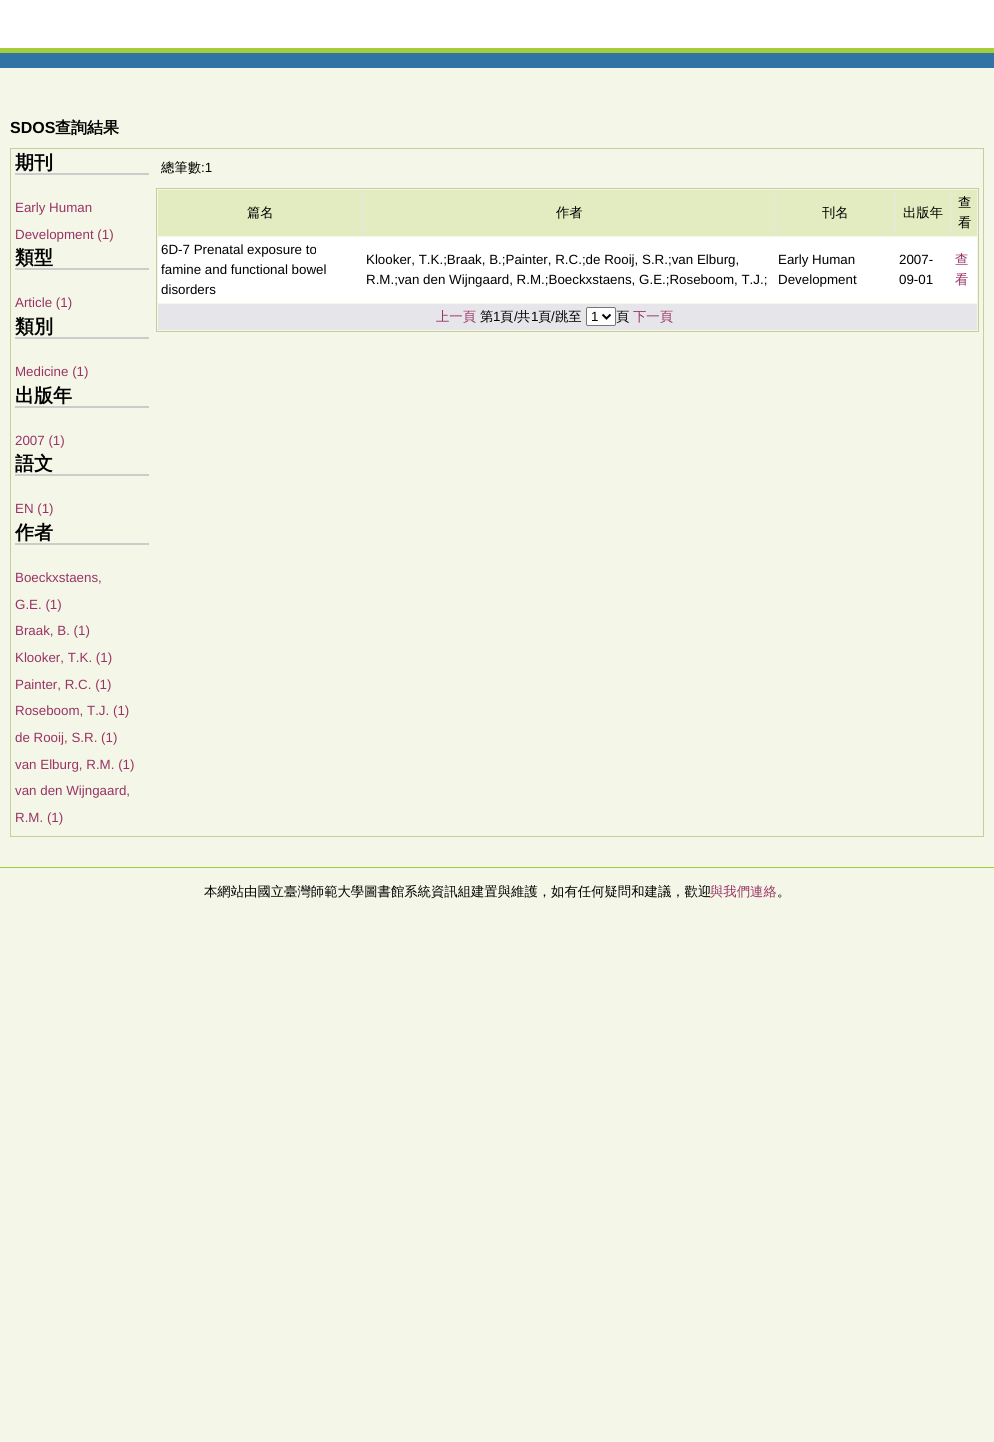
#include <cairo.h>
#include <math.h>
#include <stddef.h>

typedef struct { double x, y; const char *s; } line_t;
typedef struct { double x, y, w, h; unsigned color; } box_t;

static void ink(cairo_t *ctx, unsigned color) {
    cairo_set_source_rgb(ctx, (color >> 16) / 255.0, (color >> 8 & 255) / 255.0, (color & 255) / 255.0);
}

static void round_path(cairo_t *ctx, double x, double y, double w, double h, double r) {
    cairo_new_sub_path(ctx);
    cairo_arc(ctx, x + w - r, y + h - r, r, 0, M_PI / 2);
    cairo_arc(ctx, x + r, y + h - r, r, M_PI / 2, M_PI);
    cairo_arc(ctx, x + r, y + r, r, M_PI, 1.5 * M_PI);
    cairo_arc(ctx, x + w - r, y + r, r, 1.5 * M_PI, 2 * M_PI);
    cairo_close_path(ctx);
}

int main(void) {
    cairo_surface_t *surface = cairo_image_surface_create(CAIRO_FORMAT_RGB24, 994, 1442);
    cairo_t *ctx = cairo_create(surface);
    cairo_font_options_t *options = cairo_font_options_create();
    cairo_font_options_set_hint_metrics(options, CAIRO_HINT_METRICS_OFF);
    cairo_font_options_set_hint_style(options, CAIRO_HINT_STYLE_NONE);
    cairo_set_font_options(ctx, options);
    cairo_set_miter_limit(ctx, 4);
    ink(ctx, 0xF4F7E7);
    cairo_paint(ctx);
    {
        static const box_t items[] = {
            {0, 0, 994, 48, 0xFFFFFF},
            {0, 48, 994, 5, 0xA6CD37},
            {0, 53, 994, 15, 0x2F74A4},
        };
        for (size_t i = 0; i < sizeof items / sizeof *items; i++) {
            ink(ctx, items[i].color);
            cairo_rectangle(ctx, items[i].x, items[i].y, items[i].w, items[i].h);
            cairo_fill(ctx);
        }
    }
    cairo_select_font_face(ctx, "Liberation Sans", CAIRO_FONT_SLANT_NORMAL, CAIRO_FONT_WEIGHT_BOLD);
    cairo_set_font_size(ctx, 16);
    ink(ctx, 0x000000);
    cairo_move_to(ctx, 10, 133);
    cairo_show_text(ctx, "SDOS");
    cairo_select_font_face(ctx, "WenQuanYi Zen Hei", CAIRO_FONT_SLANT_NORMAL, CAIRO_FONT_WEIGHT_BOLD);
    cairo_move_to(ctx, 55, 133);
    cairo_show_text(ctx, "查詢結果");
    cairo_rectangle(ctx, 10.5, 148.5, 973, 688);
    ink(ctx, 0xC5CF9B);
    cairo_set_line_width(ctx, 1);
    cairo_stroke(ctx);
    ink(ctx, 0xCCCCCC);
    cairo_rectangle(ctx, 15, 173, 134, 2);
    cairo_fill(ctx);
    cairo_set_font_size(ctx, 19);
    ink(ctx, 0x000000);
    cairo_move_to(ctx, 15, 169);
    cairo_show_text(ctx, "期刊");
    cairo_select_font_face(ctx, "Liberation Sans", CAIRO_FONT_SLANT_NORMAL, CAIRO_FONT_WEIGHT_NORMAL);
    cairo_set_font_size(ctx, 13.35);
    ink(ctx, 0x993366);
    cairo_move_to(ctx, 15, 212);
    cairo_show_text(ctx, "Early Human");
    cairo_move_to(ctx, 15, 239);
    cairo_show_text(ctx, "Development (1)");
    ink(ctx, 0xCCCCCC);
    cairo_rectangle(ctx, 15, 268, 134, 2);
    cairo_fill(ctx);
    cairo_select_font_face(ctx, "WenQuanYi Zen Hei", CAIRO_FONT_SLANT_NORMAL, CAIRO_FONT_WEIGHT_BOLD);
    cairo_set_font_size(ctx, 19);
    ink(ctx, 0x000000);
    cairo_move_to(ctx, 15, 264);
    cairo_show_text(ctx, "類型");
    cairo_select_font_face(ctx, "Liberation Sans", CAIRO_FONT_SLANT_NORMAL, CAIRO_FONT_WEIGHT_NORMAL);
    cairo_set_font_size(ctx, 13.35);
    ink(ctx, 0x993366);
    cairo_move_to(ctx, 15, 307);
    cairo_show_text(ctx, "Article (1)");
    ink(ctx, 0xCCCCCC);
    cairo_rectangle(ctx, 15, 337, 134, 2);
    cairo_fill(ctx);
    cairo_select_font_face(ctx, "WenQuanYi Zen Hei", CAIRO_FONT_SLANT_NORMAL, CAIRO_FONT_WEIGHT_BOLD);
    cairo_set_font_size(ctx, 19);
    ink(ctx, 0x000000);
    cairo_move_to(ctx, 15, 333);
    cairo_show_text(ctx, "類別");
    cairo_select_font_face(ctx, "Liberation Sans", CAIRO_FONT_SLANT_NORMAL, CAIRO_FONT_WEIGHT_NORMAL);
    cairo_set_font_size(ctx, 13.35);
    ink(ctx, 0x993366);
    cairo_move_to(ctx, 15, 376);
    cairo_show_text(ctx, "Medicine (1)");
    ink(ctx, 0xCCCCCC);
    cairo_rectangle(ctx, 15, 406, 134, 2);
    cairo_fill(ctx);
    cairo_select_font_face(ctx, "WenQuanYi Zen Hei", CAIRO_FONT_SLANT_NORMAL, CAIRO_FONT_WEIGHT_BOLD);
    cairo_set_font_size(ctx, 19);
    ink(ctx, 0x000000);
    cairo_move_to(ctx, 15, 402);
    cairo_show_text(ctx, "出版年");
    cairo_select_font_face(ctx, "Liberation Sans", CAIRO_FONT_SLANT_NORMAL, CAIRO_FONT_WEIGHT_NORMAL);
    cairo_set_font_size(ctx, 13.35);
    ink(ctx, 0x993366);
    cairo_move_to(ctx, 15, 445);
    cairo_show_text(ctx, "2007 (1)");
    ink(ctx, 0xCCCCCC);
    cairo_rectangle(ctx, 15, 474, 134, 2);
    cairo_fill(ctx);
    cairo_select_font_face(ctx, "WenQuanYi Zen Hei", CAIRO_FONT_SLANT_NORMAL, CAIRO_FONT_WEIGHT_BOLD);
    cairo_set_font_size(ctx, 19);
    ink(ctx, 0x000000);
    cairo_move_to(ctx, 15, 470);
    cairo_show_text(ctx, "語文");
    cairo_select_font_face(ctx, "Liberation Sans", CAIRO_FONT_SLANT_NORMAL, CAIRO_FONT_WEIGHT_NORMAL);
    cairo_set_font_size(ctx, 13.35);
    ink(ctx, 0x993366);
    cairo_move_to(ctx, 15, 513);
    cairo_show_text(ctx, "EN (1)");
    ink(ctx, 0xCCCCCC);
    cairo_rectangle(ctx, 15, 543, 134, 2);
    cairo_fill(ctx);
    cairo_select_font_face(ctx, "WenQuanYi Zen Hei", CAIRO_FONT_SLANT_NORMAL, CAIRO_FONT_WEIGHT_BOLD);
    cairo_set_font_size(ctx, 19);
    ink(ctx, 0x000000);
    cairo_move_to(ctx, 15, 539);
    cairo_show_text(ctx, "作者");
    cairo_select_font_face(ctx, "Liberation Sans", CAIRO_FONT_SLANT_NORMAL, CAIRO_FONT_WEIGHT_NORMAL);
    cairo_set_font_size(ctx, 13.35);
    ink(ctx, 0x993366);
    {
        static const line_t items[] = {
            {15, 582, "Boeckxstaens,"},
            {15, 609, "G.E. (1)"},
            {15, 635, "Braak, B. (1)"},
            {15, 662, "Klooker, T.K. (1)"},
            {15, 689, "Painter, R.C. (1)"},
            {15, 715, "Roseboom, T.J. (1)"},
            {15, 742, "de Rooij, S.R. (1)"},
            {15, 769, "van Elburg, R.M. (1)"},
            {15, 795, "van den Wijngaard,"},
            {15, 822, "R.M. (1)"},
        };
        for (size_t i = 0; i < sizeof items / sizeof *items; i++) {
            cairo_move_to(ctx, items[i].x, items[i].y);
            cairo_show_text(ctx, items[i].s);
        }
    }
    cairo_select_font_face(ctx, "WenQuanYi Zen Hei Medium", CAIRO_FONT_SLANT_NORMAL, CAIRO_FONT_WEIGHT_NORMAL);
    ink(ctx, 0x000000);
    cairo_move_to(ctx, 161, 172);
    cairo_show_text(ctx, "總筆數");
    cairo_select_font_face(ctx, "Liberation Sans", CAIRO_FONT_SLANT_NORMAL, CAIRO_FONT_WEIGHT_NORMAL);
    cairo_move_to(ctx, 201, 172);
    cairo_show_text(ctx, ":1");
    cairo_rectangle(ctx, 156.5, 188.5, 822, 143);
    ink(ctx, 0xC5CF9B);
    cairo_stroke(ctx);
    ink(ctx, 0xE6E6EA);
    cairo_rectangle(ctx, 362, 190, 590, 46);
    cairo_fill(ctx);
    ink(ctx, 0xE3ECC0);
    cairo_rectangle(ctx, 158, 190, 204, 46);
    cairo_fill(ctx);
    cairo_select_font_face(ctx, "WenQuanYi Zen Hei Medium", CAIRO_FONT_SLANT_NORMAL, CAIRO_FONT_WEIGHT_NORMAL);
    ink(ctx, 0x000000);
    cairo_move_to(ctx, 247, 217);
    cairo_show_text(ctx, "篇名");
    ink(ctx, 0xE3ECC0);
    cairo_rectangle(ctx, 363, 190, 411, 46);
    cairo_fill(ctx);
    ink(ctx, 0x000000);
    cairo_move_to(ctx, 556, 217);
    cairo_show_text(ctx, "作者");
    ink(ctx, 0xE3ECC0);
    cairo_rectangle(ctx, 775, 190, 120, 46);
    cairo_fill(ctx);
    ink(ctx, 0x000000);
    cairo_move_to(ctx, 822, 217);
    cairo_show_text(ctx, "刊名");
    ink(ctx, 0xE3ECC0);
    cairo_rectangle(ctx, 896, 190, 55, 46);
    cairo_fill(ctx);
    ink(ctx, 0x000000);
    cairo_move_to(ctx, 903, 217);
    cairo_show_text(ctx, "出版年");
    ink(ctx, 0xE3ECC0);
    cairo_rectangle(ctx, 952, 190, 25, 46);
    cairo_fill(ctx);
    ink(ctx, 0x000000);
    cairo_move_to(ctx, 958, 207);
    cairo_show_text(ctx, "查");
    cairo_move_to(ctx, 958, 227);
    cairo_show_text(ctx, "看");
    ink(ctx, 0xFFFFFF);
    cairo_rectangle(ctx, 158, 237, 819, 66);
    cairo_fill(ctx);
    cairo_select_font_face(ctx, "Liberation Sans", CAIRO_FONT_SLANT_NORMAL, CAIRO_FONT_WEIGHT_NORMAL);
    ink(ctx, 0x000000);
    {
        static const line_t items[] = {
            {161, 254, "6D-7 Prenatal exposure to"},
            {161, 274, "famine and functional bowel"},
            {161, 294, "disorders"},
            {366, 264, "Klooker, T.K.;Braak, B.;Painter, R.C.;de Rooij, S.R.;van Elburg,"},
            {366, 284, "R.M.;van den Wijngaard, R.M.;Boeckxstaens, G.E.;Roseboom, T.J.;"},
            {778, 264, "Early Human"},
            {778, 284, "Development"},
            {899, 264, "2007-"},
            {899, 284, "09-01"},
        };
        for (size_t i = 0; i < sizeof items / sizeof *items; i++) {
            cairo_move_to(ctx, items[i].x, items[i].y);
            cairo_show_text(ctx, items[i].s);
        }
    }
    cairo_select_font_face(ctx, "WenQuanYi Zen Hei Medium", CAIRO_FONT_SLANT_NORMAL, CAIRO_FONT_WEIGHT_NORMAL);
    ink(ctx, 0x993366);
    cairo_move_to(ctx, 955, 264);
    cairo_show_text(ctx, "查");
    cairo_move_to(ctx, 955, 284);
    cairo_show_text(ctx, "看");
    ink(ctx, 0xE6E6EA);
    cairo_rectangle(ctx, 158, 304, 819, 26);
    cairo_fill(ctx);
    ink(ctx, 0x993366);
    cairo_move_to(ctx, 436, 321);
    cairo_show_text(ctx, "上一頁");
    ink(ctx, 0x000000);
    cairo_move_to(ctx, 480, 321);
    cairo_show_text(ctx, "第");
    cairo_select_font_face(ctx, "Liberation Sans", CAIRO_FONT_SLANT_NORMAL, CAIRO_FONT_WEIGHT_NORMAL);
    cairo_move_to(ctx, 493, 321);
    cairo_show_text(ctx, "1");
    cairo_select_font_face(ctx, "WenQuanYi Zen Hei Medium", CAIRO_FONT_SLANT_NORMAL, CAIRO_FONT_WEIGHT_NORMAL);
    cairo_move_to(ctx, 500, 321);
    cairo_show_text(ctx, "頁");
    cairo_select_font_face(ctx, "Liberation Sans", CAIRO_FONT_SLANT_NORMAL, CAIRO_FONT_WEIGHT_NORMAL);
    cairo_move_to(ctx, 514, 321);
    cairo_show_text(ctx, "/");
    cairo_select_font_face(ctx, "WenQuanYi Zen Hei Medium", CAIRO_FONT_SLANT_NORMAL, CAIRO_FONT_WEIGHT_NORMAL);
    cairo_move_to(ctx, 517, 321);
    cairo_show_text(ctx, "共");
    cairo_select_font_face(ctx, "Liberation Sans", CAIRO_FONT_SLANT_NORMAL, CAIRO_FONT_WEIGHT_NORMAL);
    cairo_move_to(ctx, 531, 321);
    cairo_show_text(ctx, "1");
    cairo_select_font_face(ctx, "WenQuanYi Zen Hei Medium", CAIRO_FONT_SLANT_NORMAL, CAIRO_FONT_WEIGHT_NORMAL);
    cairo_move_to(ctx, 538, 321);
    cairo_show_text(ctx, "頁");
    cairo_select_font_face(ctx, "Liberation Sans", CAIRO_FONT_SLANT_NORMAL, CAIRO_FONT_WEIGHT_NORMAL);
    cairo_move_to(ctx, 551, 321);
    cairo_show_text(ctx, "/");
    cairo_select_font_face(ctx, "WenQuanYi Zen Hei Medium", CAIRO_FONT_SLANT_NORMAL, CAIRO_FONT_WEIGHT_NORMAL);
    cairo_move_to(ctx, 555, 321);
    cairo_show_text(ctx, "跳至");
    ink(ctx, 0xFFFFFF);
    round_path(ctx, 586.5, 307.5, 29, 18, 1.5);
    cairo_fill_preserve(ctx);
    ink(ctx, 0x767676);
    cairo_stroke(ctx);
    cairo_new_path(ctx);
    cairo_move_to(ctx, 602.5, 314.5);
    cairo_line_to(ctx, 606.5, 318.5);
    cairo_line_to(ctx, 610.5, 314.5);
    ink(ctx, 0x000000);
    cairo_set_line_width(ctx, 2);
    cairo_stroke(ctx);
    cairo_select_font_face(ctx, "Liberation Sans", CAIRO_FONT_SLANT_NORMAL, CAIRO_FONT_WEIGHT_NORMAL);
    cairo_move_to(ctx, 591, 321);
    cairo_show_text(ctx, "1");
    cairo_select_font_face(ctx, "WenQuanYi Zen Hei Medium", CAIRO_FONT_SLANT_NORMAL, CAIRO_FONT_WEIGHT_NORMAL);
    cairo_move_to(ctx, 616, 321);
    cairo_show_text(ctx, "頁");
    ink(ctx, 0x993366);
    cairo_move_to(ctx, 633, 321);
    cairo_show_text(ctx, "下一頁");
    ink(ctx, 0xA6CD37);
    cairo_rectangle(ctx, 0, 867, 994, 1);
    cairo_fill(ctx);
    ink(ctx, 0x000000);
    cairo_move_to(ctx, 204, 896);
    cairo_show_text(ctx, "本網站由國立臺灣師範大學圖書館系統資訊組建置與維護，如有任何疑問和建議，歡迎");
    ink(ctx, 0x993366);
    cairo_move_to(ctx, 710, 896);
    cairo_show_text(ctx, "與我們連絡");
    ink(ctx, 0x000000);
    cairo_move_to(ctx, 777, 896);
    cairo_show_text(ctx, "。");
    cairo_surface_write_to_png(surface, "image.png");
    cairo_font_options_destroy(options);
    cairo_destroy(ctx);
    cairo_surface_destroy(surface);
    return 0;
}
